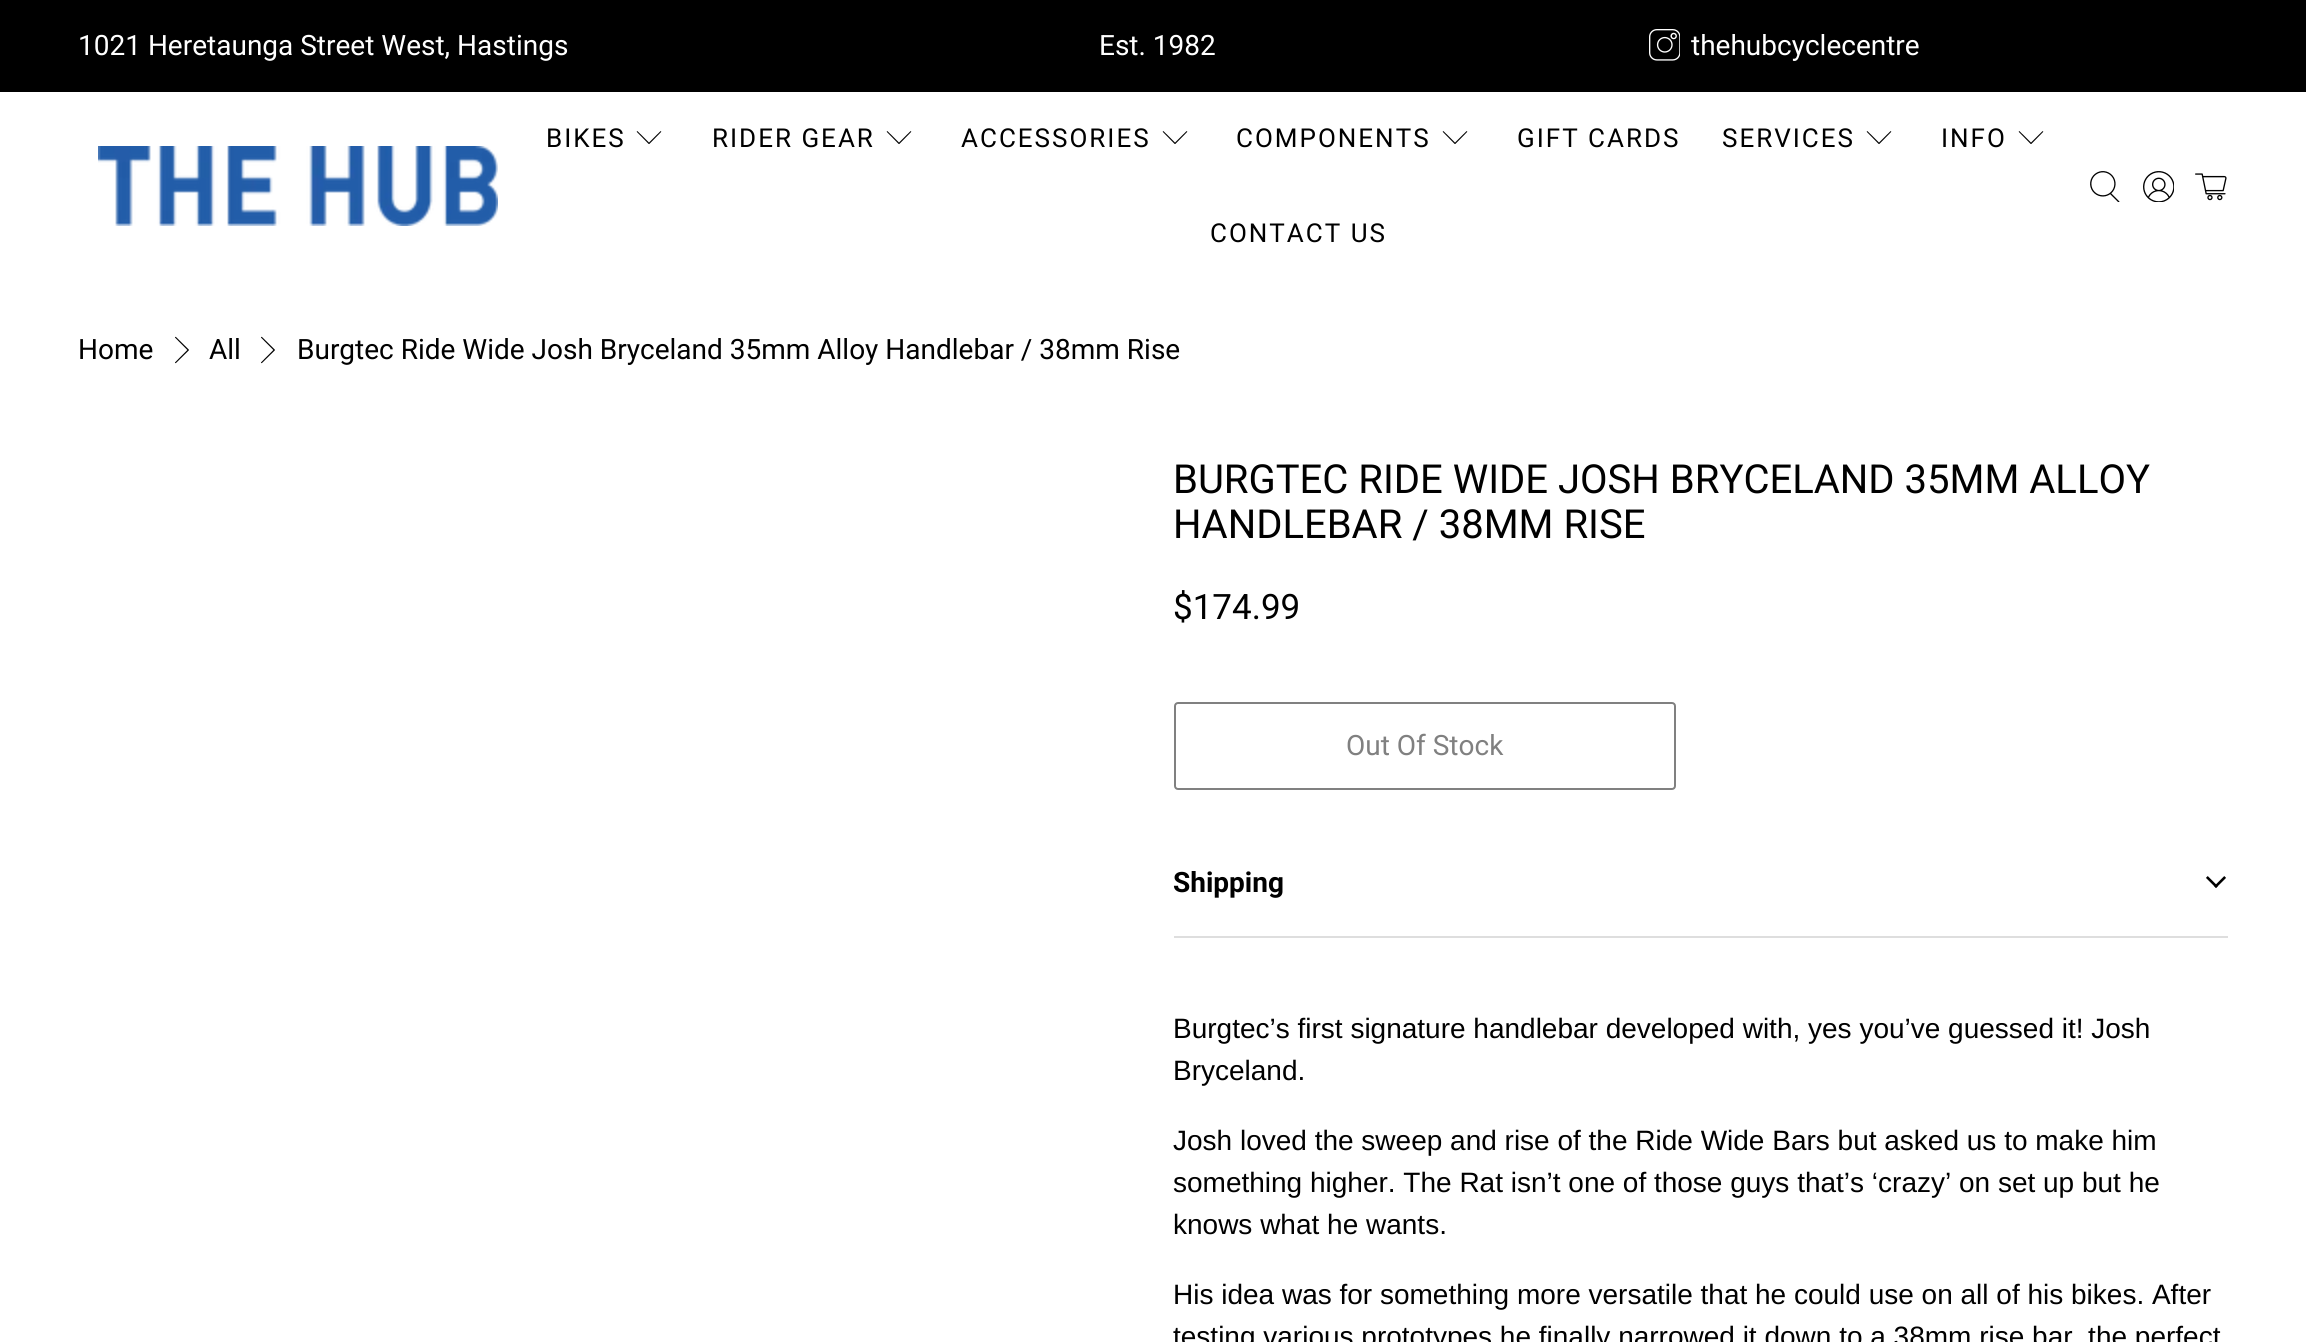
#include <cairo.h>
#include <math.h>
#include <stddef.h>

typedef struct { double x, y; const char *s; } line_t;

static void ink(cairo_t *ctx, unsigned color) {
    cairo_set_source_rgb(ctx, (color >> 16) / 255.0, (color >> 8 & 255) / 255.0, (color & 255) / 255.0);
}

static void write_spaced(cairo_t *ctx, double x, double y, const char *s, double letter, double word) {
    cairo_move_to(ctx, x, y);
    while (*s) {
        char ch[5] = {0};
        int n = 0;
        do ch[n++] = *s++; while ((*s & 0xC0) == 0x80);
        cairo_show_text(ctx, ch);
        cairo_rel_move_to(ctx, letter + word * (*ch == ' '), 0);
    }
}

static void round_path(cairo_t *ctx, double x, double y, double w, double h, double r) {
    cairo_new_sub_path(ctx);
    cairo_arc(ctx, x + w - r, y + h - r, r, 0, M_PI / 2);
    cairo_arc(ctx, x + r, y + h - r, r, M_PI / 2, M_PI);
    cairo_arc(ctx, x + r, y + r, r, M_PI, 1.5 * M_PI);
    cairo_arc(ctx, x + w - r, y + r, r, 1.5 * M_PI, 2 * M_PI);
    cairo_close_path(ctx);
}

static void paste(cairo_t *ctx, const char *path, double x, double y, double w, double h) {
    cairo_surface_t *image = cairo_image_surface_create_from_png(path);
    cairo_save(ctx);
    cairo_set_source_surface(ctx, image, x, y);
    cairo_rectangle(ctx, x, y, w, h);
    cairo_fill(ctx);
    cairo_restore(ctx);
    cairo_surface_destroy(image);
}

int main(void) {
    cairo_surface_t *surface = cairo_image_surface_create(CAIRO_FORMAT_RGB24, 2306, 1342);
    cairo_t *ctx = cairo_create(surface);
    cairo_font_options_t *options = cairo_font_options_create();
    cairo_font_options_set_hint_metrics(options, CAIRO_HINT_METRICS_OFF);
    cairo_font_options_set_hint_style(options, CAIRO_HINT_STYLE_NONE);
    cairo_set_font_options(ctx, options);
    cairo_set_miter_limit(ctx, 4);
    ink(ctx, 0xFFFFFF);
    cairo_paint(ctx);
    ink(ctx, 0x000000);
    cairo_rectangle(ctx, 0, 0, 2306, 92);
    cairo_fill(ctx);
    cairo_select_font_face(ctx, "Roboto", CAIRO_FONT_SLANT_NORMAL, CAIRO_FONT_WEIGHT_NORMAL);
    cairo_set_font_size(ctx, 28);
    ink(ctx, 0xFFFFFF);
    cairo_move_to(ctx, 78, 55);
    cairo_show_text(ctx, "1021 Heretaunga Street West, Hastings");
    cairo_move_to(ctx, 1099, 55);
    cairo_show_text(ctx, "Est. 1982");
    paste(ctx, "media/1.png", 1649, 29, 31, 32);
    cairo_move_to(ctx, 1691, 55);
    cairo_show_text(ctx, "thehubcyclecentre");
    paste(ctx, "media/2.png", 98, 146, 400, 80);
    cairo_set_font_size(ctx, 26);
    ink(ctx, 0x000000);
    write_spaced(ctx, 546, 147, "BIKES", 2, 0);
    paste(ctx, "media/3.png", 636, 131, 26, 13);
    write_spaced(ctx, 712, 147, "RIDER GEAR", 2, 0);
    paste(ctx, "media/3.png", 886, 131, 26, 13);
    write_spaced(ctx, 961, 147, "ACCESSORIES", 2, 0);
    paste(ctx, "media/3.png", 1162, 131, 26, 13);
    write_spaced(ctx, 1236, 147, "COMPONENTS", 2, 0);
    paste(ctx, "media/3.png", 1442, 131, 26, 13);
    write_spaced(ctx, 1517, 147, "GIFT CARDS", 2, 0);
    write_spaced(ctx, 1722, 147, "SERVICES", 2, 0);
    paste(ctx, "media/3.png", 1866, 131, 26, 13);
    write_spaced(ctx, 1941, 147, "INFO", 2, 0);
    paste(ctx, "media/3.png", 2018, 131, 26, 13);
    write_spaced(ctx, 1210, 242, "CONTACT US", 2, 0);
    paste(ctx, "media/4.png", 2090, 171, 30, 31);
    paste(ctx, "media/5.png", 2143, 171, 31, 31);
    paste(ctx, "media/6.png", 2195, 173, 32, 28);
    cairo_set_font_size(ctx, 28);
    cairo_move_to(ctx, 78, 359);
    cairo_show_text(ctx, "Home");
    paste(ctx, "media/7.png", 175, 336, 14, 28);
    cairo_move_to(ctx, 209, 359);
    cairo_show_text(ctx, "All");
    paste(ctx, "media/7.png", 261, 336, 14, 28);
    cairo_move_to(ctx, 297, 359);
    cairo_show_text(ctx, "Burgtec Ride Wide Josh Bryceland 35mm Alloy Handlebar / 38mm Rise");
    cairo_set_font_size(ctx, 40);
    cairo_move_to(ctx, 1173, 493);
    cairo_show_text(ctx, "BURGTEC RIDE WIDE JOSH BRYCELAND 35MM ALLOY");
    cairo_move_to(ctx, 1173, 538);
    cairo_show_text(ctx, "HANDLEBAR / 38MM RISE");
    cairo_set_font_size(ctx, 35);
    cairo_move_to(ctx, 1173, 619);
    cairo_show_text(ctx, "$174.99");
    round_path(ctx, 1175, 703, 500, 86, 3);
    ink(ctx, 0x808080);
    cairo_stroke(ctx);
    cairo_set_font_size(ctx, 28);
    cairo_move_to(ctx, 1346, 755);
    cairo_show_text(ctx, "Out Of Stock");
    ink(ctx, 0xDEDEDE);
    cairo_rectangle(ctx, 1174, 936, 1054, 2);
    cairo_fill(ctx);
    cairo_select_font_face(ctx, "Roboto", CAIRO_FONT_SLANT_NORMAL, CAIRO_FONT_WEIGHT_BOLD);
    ink(ctx, 0x000000);
    cairo_move_to(ctx, 1173, 892);
    cairo_show_text(ctx, "Shipping");
    paste(ctx, "media/8.png", 2206, 876, 20, 12);
    cairo_select_font_face(ctx, "Liberation Sans", CAIRO_FONT_SLANT_NORMAL, CAIRO_FONT_WEIGHT_NORMAL);
    {
        static const line_t items[] = {
            {1173, 1038, "Burgtec’s first signature handlebar developed with, yes you’ve guessed it! Josh"},
            {1173, 1080, "Bryceland."},
            {1173, 1150, "Josh loved the sweep and rise of the Ride Wide Bars but asked us to make him"},
            {1173, 1192, "something higher. The Rat isn’t one of those guys that’s ‘crazy’ on set up but he"},
            {1173, 1234, "knows what he wants."},
            {1173, 1304, "His idea was for something more versatile that he could use on all of his bikes. After"},
            {1173, 1346, "testing various prototypes he finally narrowed it down to a 38mm rise bar, the perfect"},
        };
        for (size_t i = 0; i < sizeof items / sizeof *items; i++) {
            cairo_move_to(ctx, items[i].x, items[i].y);
            cairo_show_text(ctx, items[i].s);
        }
    }
    cairo_surface_write_to_png(surface, "image.png");
    cairo_font_options_destroy(options);
    cairo_destroy(ctx);
    cairo_surface_destroy(surface);
    return 0;
}
